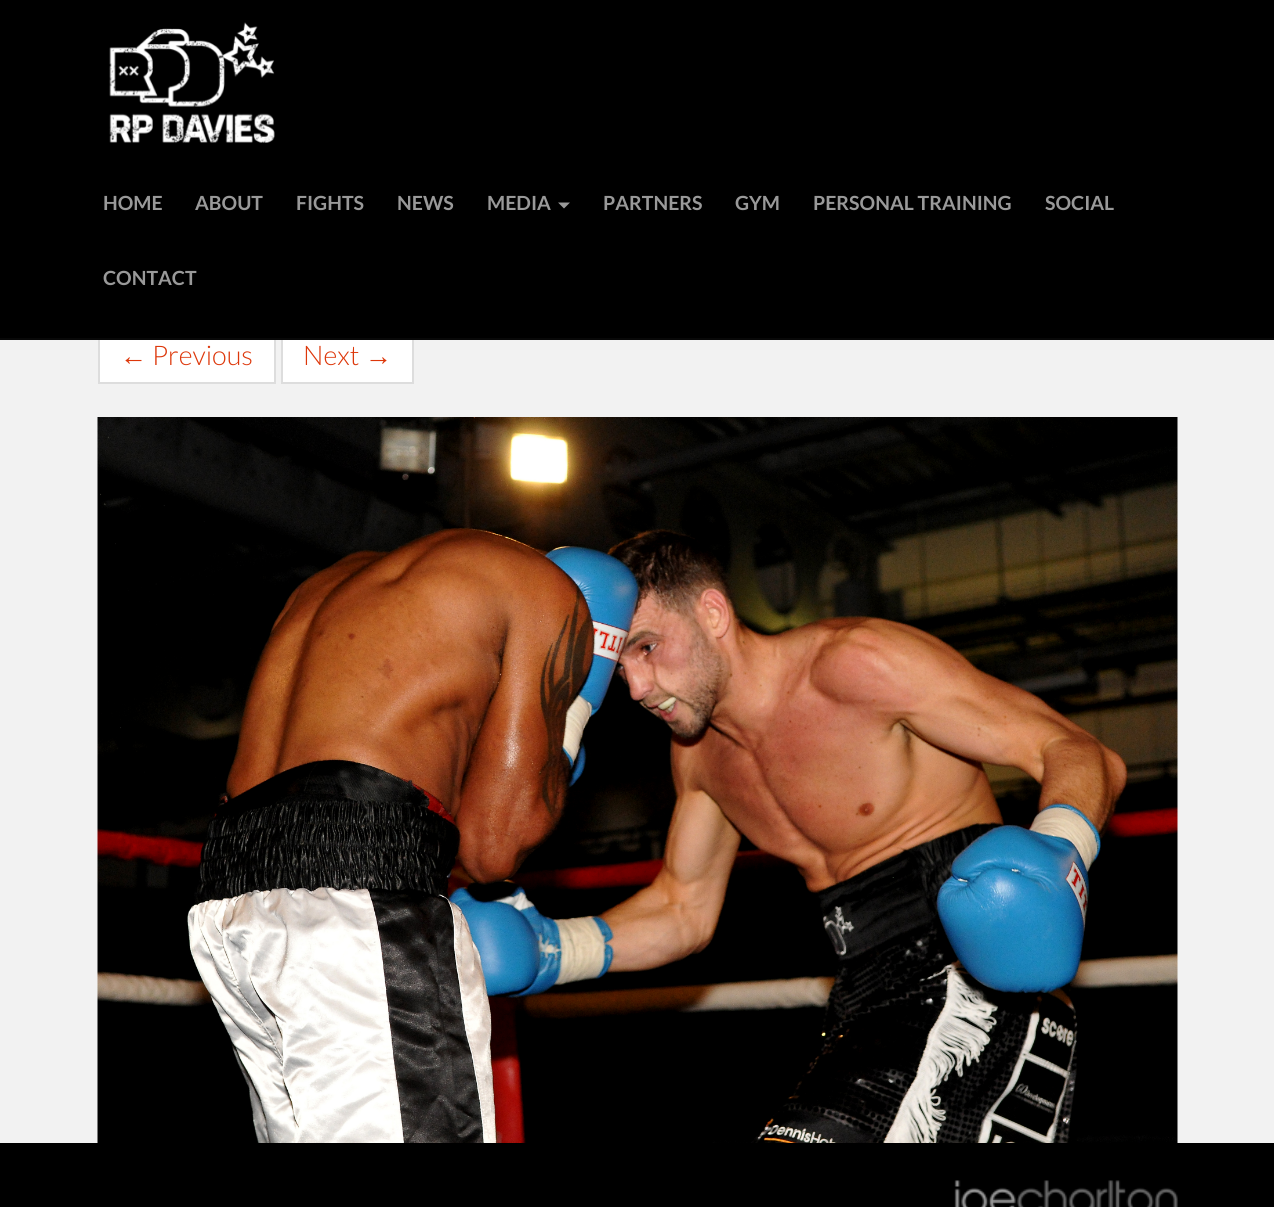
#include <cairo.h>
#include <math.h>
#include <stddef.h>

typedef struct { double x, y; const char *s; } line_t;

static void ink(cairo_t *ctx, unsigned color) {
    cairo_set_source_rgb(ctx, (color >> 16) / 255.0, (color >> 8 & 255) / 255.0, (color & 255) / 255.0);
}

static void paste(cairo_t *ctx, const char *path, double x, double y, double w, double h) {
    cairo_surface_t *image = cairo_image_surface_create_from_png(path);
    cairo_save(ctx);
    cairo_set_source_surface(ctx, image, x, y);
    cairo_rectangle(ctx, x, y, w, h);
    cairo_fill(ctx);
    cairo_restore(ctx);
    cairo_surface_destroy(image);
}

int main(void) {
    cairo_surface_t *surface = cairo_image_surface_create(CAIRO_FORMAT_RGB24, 1274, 1207);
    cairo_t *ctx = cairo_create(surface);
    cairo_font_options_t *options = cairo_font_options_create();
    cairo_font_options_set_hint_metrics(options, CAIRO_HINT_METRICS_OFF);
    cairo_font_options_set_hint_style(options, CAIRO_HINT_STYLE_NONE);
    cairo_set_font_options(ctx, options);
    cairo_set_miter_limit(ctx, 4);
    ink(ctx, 0xF2F2F2);
    cairo_paint(ctx);
    ink(ctx, 0xFFFFFF);
    cairo_rectangle(ctx, 100, 340, 174, 42);
    cairo_fill(ctx);
    cairo_rectangle(ctx, 99, 330, 176, 53);
    ink(ctx, 0xDDDDDD);
    cairo_stroke(ctx);
    ink(ctx, 0xFFFFFF);
    cairo_rectangle(ctx, 283, 340, 129, 42);
    cairo_fill(ctx);
    cairo_rectangle(ctx, 282, 330, 131, 53);
    ink(ctx, 0xDDDDDD);
    cairo_stroke(ctx);
    ink(ctx, 0x000000);
    cairo_rectangle(ctx, 0, 0, 1274, 338);
    cairo_fill(ctx);
    ink(ctx, 0x080808);
    cairo_rectangle(ctx, 0, 338, 1274, 2);
    cairo_fill(ctx);
    paste(ctx, "media/1.png", 109, 22, 166, 121);
    cairo_select_font_face(ctx, "Lato", CAIRO_FONT_SLANT_NORMAL, CAIRO_FONT_WEIGHT_BOLD);
    cairo_set_font_size(ctx, 19.5);
    ink(ctx, 0x999999);
    {
        static const line_t items[] = {
            {103, 210, "HOME"},
            {195, 210, "ABOUT"},
            {296, 210, "FIGHTS"},
            {397, 210, "NEWS"},
            {487, 210, "MEDIA"},
        };
        for (size_t i = 0; i < sizeof items / sizeof *items; i++) {
            cairo_move_to(ctx, items[i].x, items[i].y);
            cairo_show_text(ctx, items[i].s);
        }
    }
    cairo_new_path(ctx);
    cairo_move_to(ctx, 558, 202.5);
    cairo_line_to(ctx, 570, 202.5);
    cairo_line_to(ctx, 564, 208.5);
    cairo_close_path(ctx);
    cairo_fill(ctx);
    {
        static const line_t items[] = {
            {603, 210, "PARTNERS"},
            {735, 210, "GYM"},
            {813, 210, "PERSONAL TRAINING"},
            {1045, 210, "SOCIAL"},
            {103, 285, "CONTACT"},
        };
        for (size_t i = 0; i < sizeof items / sizeof *items; i++) {
            cairo_move_to(ctx, items[i].x, items[i].y);
            cairo_show_text(ctx, items[i].s);
        }
    }
    cairo_select_font_face(ctx, "Liberation Sans", CAIRO_FONT_SLANT_NORMAL, CAIRO_FONT_WEIGHT_NORMAL);
    cairo_set_font_size(ctx, 27);
    ink(ctx, 0xDD370A);
    cairo_move_to(ctx, 120, 365);
    cairo_show_text(ctx, "←");
    cairo_select_font_face(ctx, "Lato Light", CAIRO_FONT_SLANT_NORMAL, CAIRO_FONT_WEIGHT_NORMAL);
    cairo_move_to(ctx, 152, 365);
    cairo_show_text(ctx, "Previous");
    cairo_move_to(ctx, 303, 365);
    cairo_show_text(ctx, "Next");
    cairo_select_font_face(ctx, "Liberation Sans", CAIRO_FONT_SLANT_NORMAL, CAIRO_FONT_WEIGHT_NORMAL);
    cairo_move_to(ctx, 365, 365);
    cairo_show_text(ctx, "→");
    paste(ctx, "media/2.png", 97, 417, 1081, 726);
    ink(ctx, 0x000000);
    cairo_rectangle(ctx, 0, 1143, 1274, 64);
    cairo_fill(ctx);
    paste(ctx, "media/3.png", 954, 1180, 224, 27);
    cairo_surface_write_to_png(surface, "image.png");
    cairo_font_options_destroy(options);
    cairo_destroy(ctx);
    cairo_surface_destroy(surface);
    return 0;
}
